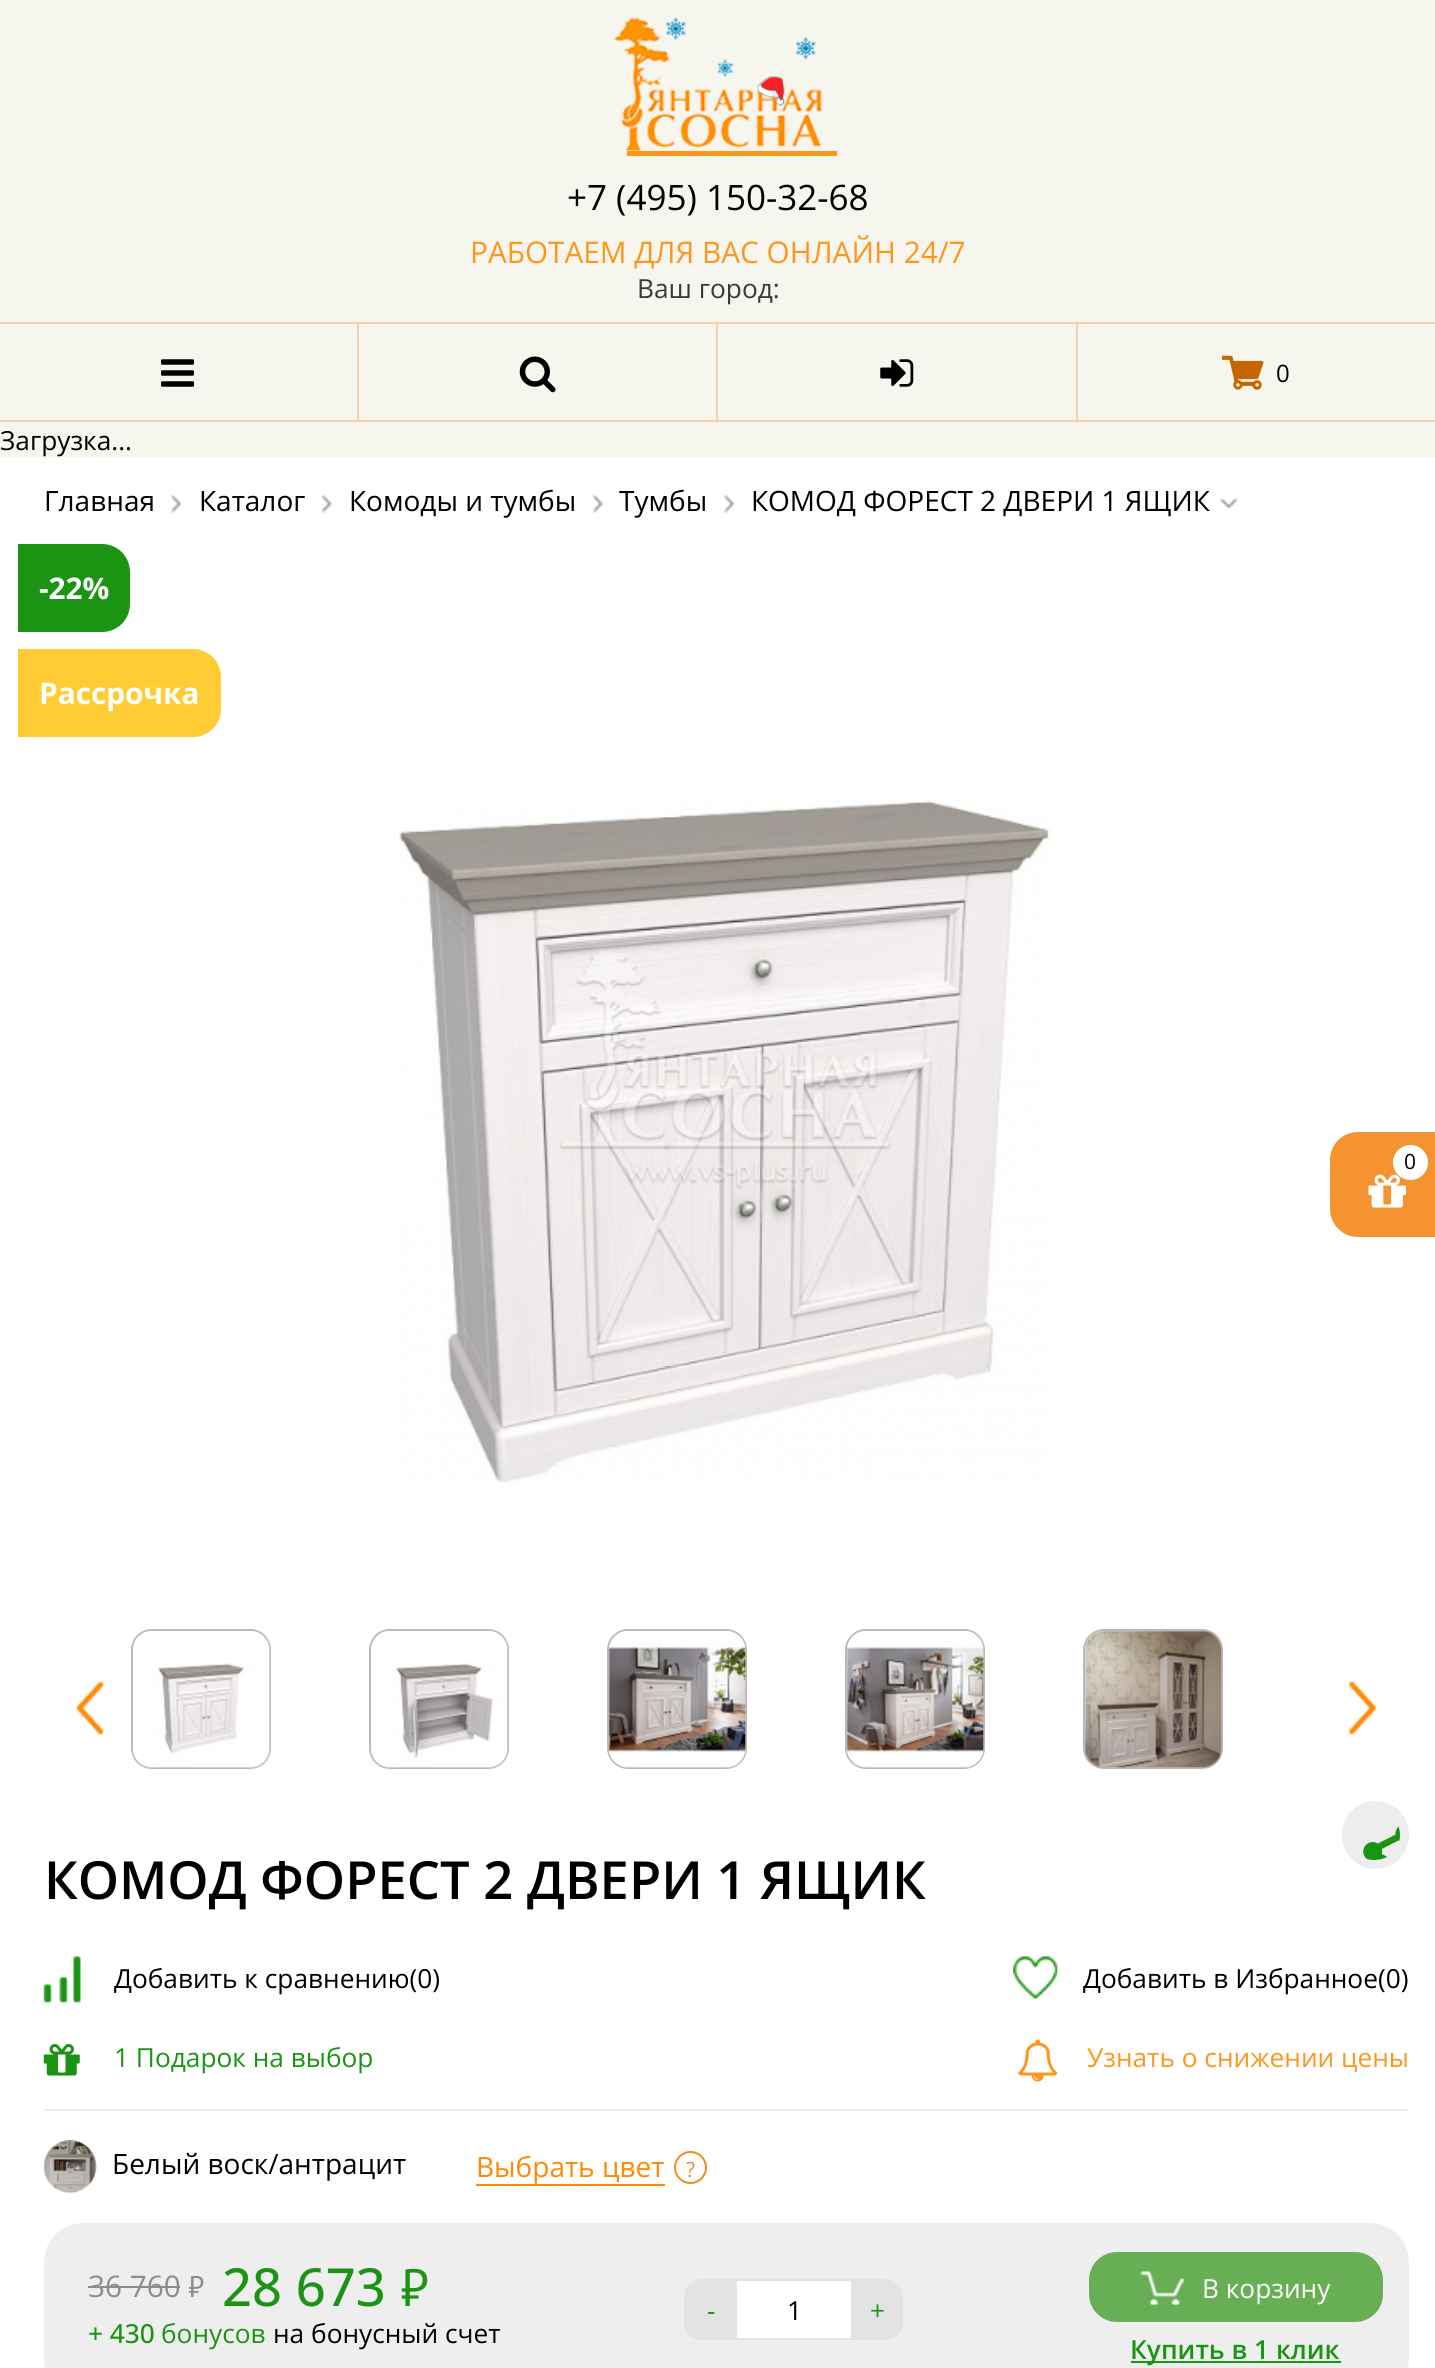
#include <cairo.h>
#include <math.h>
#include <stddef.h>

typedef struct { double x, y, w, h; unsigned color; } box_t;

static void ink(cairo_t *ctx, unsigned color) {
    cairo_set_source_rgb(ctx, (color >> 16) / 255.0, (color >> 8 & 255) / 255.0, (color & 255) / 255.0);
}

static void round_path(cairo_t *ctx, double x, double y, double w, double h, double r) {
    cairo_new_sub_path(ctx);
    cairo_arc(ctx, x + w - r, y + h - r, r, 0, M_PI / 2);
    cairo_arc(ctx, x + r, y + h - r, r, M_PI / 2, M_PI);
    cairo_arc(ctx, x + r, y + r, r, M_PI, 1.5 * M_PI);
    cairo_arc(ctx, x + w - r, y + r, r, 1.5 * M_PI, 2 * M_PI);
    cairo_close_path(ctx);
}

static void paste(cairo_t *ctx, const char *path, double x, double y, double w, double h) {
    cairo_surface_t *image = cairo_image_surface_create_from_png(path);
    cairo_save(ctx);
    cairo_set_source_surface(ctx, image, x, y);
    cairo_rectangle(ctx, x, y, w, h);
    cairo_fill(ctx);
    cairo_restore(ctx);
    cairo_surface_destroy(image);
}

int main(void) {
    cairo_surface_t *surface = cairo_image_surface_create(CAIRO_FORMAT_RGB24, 1435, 2368);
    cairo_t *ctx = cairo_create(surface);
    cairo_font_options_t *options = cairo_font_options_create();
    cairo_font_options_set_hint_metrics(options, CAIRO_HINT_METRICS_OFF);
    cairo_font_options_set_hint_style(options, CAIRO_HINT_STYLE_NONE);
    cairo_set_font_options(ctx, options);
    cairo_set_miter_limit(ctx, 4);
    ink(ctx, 0xF6F6EE);
    cairo_paint(ctx);
    paste(ctx, "media/1.png", 613, 17, 210, 134);
    ink(ctx, 0xFE961D);
    cairo_rectangle(ctx, 627, 151, 210, 5);
    cairo_fill(ctx);
    cairo_select_font_face(ctx, "Open Sans", CAIRO_FONT_SLANT_NORMAL, CAIRO_FONT_WEIGHT_NORMAL);
    cairo_set_font_size(ctx, 35);
    ink(ctx, 0x000000);
    cairo_move_to(ctx, 567, 210);
    cairo_show_text(ctx, "+7 (495) 150-32-68");
    cairo_set_font_size(ctx, 29.75);
    ink(ctx, 0xFE961D);
    cairo_move_to(ctx, 470, 263);
    cairo_show_text(ctx, "РАБОТАЕМ ДЛЯ ВАС ОНЛАЙН 24/7");
    cairo_set_font_size(ctx, 26.25);
    ink(ctx, 0x363A3D);
    cairo_move_to(ctx, 637, 298);
    cairo_show_text(ctx, "Ваш город:");
    {
        static const box_t items[] = {
            {0, 322, 1435, 2, 0xF1CFAD},
            {0, 420, 1435, 2, 0xF1CFAD},
            {357, 324, 2, 96, 0xF1CFAD},
        };
        for (size_t i = 0; i < sizeof items / sizeof *items; i++) {
            ink(ctx, items[i].color);
            cairo_rectangle(ctx, items[i].x, items[i].y, items[i].w, items[i].h);
            cairo_fill(ctx);
        }
    }
    paste(ctx, "media/2.png", 161, 359, 33, 28);
    cairo_rectangle(ctx, 716, 324, 2, 96);
    cairo_fill(ctx);
    paste(ctx, "media/3.png", 519, 356, 37, 37);
    cairo_rectangle(ctx, 1076, 324, 2, 96);
    cairo_fill(ctx);
    paste(ctx, "media/4.png", 880, 359, 34, 28);
    paste(ctx, "media/5.png", 1222, 355, 42, 35);
    cairo_set_font_size(ctx, 24);
    ink(ctx, 0x000000);
    cairo_move_to(ctx, 1276, 382);
    cairo_show_text(ctx, "0");
    cairo_set_font_size(ctx, 26.25);
    cairo_move_to(ctx, 0, 450);
    cairo_show_text(ctx, "Загрузка...");
    ink(ctx, 0xFFFFFF);
    cairo_rectangle(ctx, 0, 457, 1435, 1911);
    cairo_fill(ctx);
    paste(ctx, "media/6.png", 171, 494, 11, 19);
    cairo_set_font_size(ctx, 28);
    ink(ctx, 0x000000);
    cairo_move_to(ctx, 44, 511);
    cairo_show_text(ctx, "Главная");
    paste(ctx, "media/7.png", 322, 494, 11, 19);
    cairo_move_to(ctx, 199, 511);
    cairo_show_text(ctx, "Каталог");
    paste(ctx, "media/8.png", 593, 494, 11, 19);
    cairo_move_to(ctx, 349, 511);
    cairo_show_text(ctx, "Комоды и тумбы");
    paste(ctx, "media/6.png", 724, 494, 11, 19);
    cairo_move_to(ctx, 619, 511);
    cairo_show_text(ctx, "Тумбы");
    paste(ctx, "media/9.png", 1219, 498, 19, 11);
    cairo_move_to(ctx, 751, 511);
    cairo_show_text(ctx, "КОМОД ФОРЕСТ 2 ДВЕРИ 1 ЯЩИК");
    ink(ctx, 0x1A9412);
    cairo_new_path(ctx);
    cairo_move_to(ctx, 18, 544);
    cairo_line_to(ctx, 102, 544);
    cairo_curve_to(ctx, 117.5, 544, 130, 556.5, 130, 572);
    cairo_line_to(ctx, 130, 604);
    cairo_curve_to(ctx, 130, 619.5, 117.5, 632, 102, 632);
    cairo_line_to(ctx, 18, 632);
    cairo_close_path(ctx);
    cairo_fill(ctx);
    cairo_select_font_face(ctx, "Open Sans", CAIRO_FONT_SLANT_NORMAL, CAIRO_FONT_WEIGHT_BOLD);
    cairo_set_font_size(ctx, 29.75);
    ink(ctx, 0xFFFFFF);
    cairo_move_to(ctx, 39, 599);
    cairo_show_text(ctx, "-22%");
    ink(ctx, 0xFFCC33);
    cairo_new_path(ctx);
    cairo_move_to(ctx, 18, 649);
    cairo_line_to(ctx, 193, 649);
    cairo_curve_to(ctx, 208.5, 649, 221, 661.5, 221, 677);
    cairo_line_to(ctx, 221, 709);
    cairo_curve_to(ctx, 221, 724.5, 208.5, 737, 193, 737);
    cairo_line_to(ctx, 18, 737);
    cairo_close_path(ctx);
    cairo_fill(ctx);
    ink(ctx, 0xFFFFFF);
    cairo_move_to(ctx, 39, 704);
    cairo_show_text(ctx, "Рассрочка");
    paste(ctx, "media/10.png", 399, 798, 652, 686);
    round_path(ctx, 132, 1630, 138, 138, 20);
    ink(ctx, 0xBCB9B9);
    cairo_stroke(ctx);
    paste(ctx, "media/11.png", 133, 1631, 137, 137);
    round_path(ctx, 370, 1630, 138, 138, 20);
    cairo_stroke(ctx);
    paste(ctx, "media/12.png", 371, 1631, 137, 137);
    round_path(ctx, 608, 1630, 138, 138, 20);
    cairo_stroke(ctx);
    paste(ctx, "media/13.png", 608, 1631, 138, 137);
    round_path(ctx, 846, 1630, 138, 138, 20);
    cairo_stroke(ctx);
    paste(ctx, "media/14.png", 846, 1631, 138, 137);
    round_path(ctx, 1084, 1630, 138, 138, 20);
    cairo_stroke(ctx);
    paste(ctx, "media/15.png", 1085, 1630, 137, 138);
    paste(ctx, "media/16.png", 76, 1681, 28, 54);
    paste(ctx, "media/17.png", 1349, 1681, 27, 54);
    ink(ctx, 0xEDEDED);
    round_path(ctx, 1342, 1801, 67, 68, 33.5);
    cairo_fill(ctx);
    paste(ctx, "media/18.png", 1363, 1826, 37, 34);
    cairo_select_font_face(ctx, "Open Sans SemiBold", CAIRO_FONT_SLANT_NORMAL, CAIRO_FONT_WEIGHT_NORMAL);
    cairo_set_font_size(ctx, 52.5);
    ink(ctx, 0x000000);
    cairo_move_to(ctx, 44, 1899);
    cairo_show_text(ctx, "КОМОД ФОРЕСТ 2 ДВЕРИ 1 ЯЩИК");
    paste(ctx, "media/19.png", 43, 1956, 38, 47);
    cairo_select_font_face(ctx, "Open Sans", CAIRO_FONT_SLANT_NORMAL, CAIRO_FONT_WEIGHT_NORMAL);
    cairo_set_font_size(ctx, 26.25);
    cairo_move_to(ctx, 114, 1988);
    cairo_show_text(ctx, "Добавить к сравнению(0)");
    paste(ctx, "media/20.png", 1013, 1956, 45, 43);
    cairo_move_to(ctx, 1083, 1988);
    cairo_show_text(ctx, "Добавить в Избранное(0)");
    paste(ctx, "media/21.png", 43, 2044, 37, 32);
    ink(ctx, 0x1A9412);
    cairo_move_to(ctx, 114, 2067);
    cairo_show_text(ctx, "1 Подарок на выбор");
    paste(ctx, "media/22.png", 1018, 2039, 40, 43);
    ink(ctx, 0xFE961D);
    cairo_move_to(ctx, 1087, 2067);
    cairo_show_text(ctx, "Узнать о снижении цены");
    ink(ctx, 0xEDEDED);
    cairo_rectangle(ctx, 44, 2109, 1365, 2);
    cairo_fill(ctx);
    paste(ctx, "media/23.png", 44, 2140, 53, 54);
    cairo_set_font_size(ctx, 28);
    ink(ctx, 0x000000);
    cairo_move_to(ctx, 112, 2174);
    cairo_show_text(ctx, "Белый воск/антрацит");
    ink(ctx, 0xFF8804);
    cairo_rectangle(ctx, 476, 2184, 189, 2);
    cairo_fill(ctx);
    cairo_move_to(ctx, 476, 2177);
    cairo_show_text(ctx, "Выбрать цвет");
    cairo_new_path(ctx);
    cairo_arc(ctx, 690.5, 2167.5, 15.5, 0, 2 * M_PI);
    ink(ctx, 0xF38B20);
    cairo_stroke(ctx);
    cairo_set_font_size(ctx, 21);
    cairo_move_to(ctx, 686, 2177);
    cairo_show_text(ctx, "?");
    ink(ctx, 0xEEEEEE);
    round_path(ctx, 44, 2223, 1365, 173, 39);
    cairo_fill(ctx);
    cairo_set_font_size(ctx, 29.75);
    ink(ctx, 0x8C8C8C);
    cairo_move_to(ctx, 88, 2297);
    cairo_show_text(ctx, "36 760");
    cairo_rectangle(ctx, 88, 2286, 92, 2);
    cairo_fill(ctx);
    cairo_select_font_face(ctx, "PT Sans", CAIRO_FONT_SLANT_NORMAL, CAIRO_FONT_WEIGHT_NORMAL);
    cairo_move_to(ctx, 188, 2297);
    cairo_show_text(ctx, "⃌");
    cairo_select_font_face(ctx, "Open Sans Medium", CAIRO_FONT_SLANT_NORMAL, CAIRO_FONT_WEIGHT_NORMAL);
    cairo_set_font_size(ctx, 52.5);
    ink(ctx, 0x1A9412);
    cairo_move_to(ctx, 222, 2306);
    cairo_show_text(ctx, "28 673");
    cairo_select_font_face(ctx, "PT Sans", CAIRO_FONT_SLANT_NORMAL, CAIRO_FONT_WEIGHT_NORMAL);
    cairo_move_to(ctx, 400, 2306);
    cairo_show_text(ctx, "⃌");
    cairo_select_font_face(ctx, "Open Sans Medium", CAIRO_FONT_SLANT_NORMAL, CAIRO_FONT_WEIGHT_NORMAL);
    cairo_set_font_size(ctx, 26.25);
    cairo_move_to(ctx, 88, 2343);
    cairo_show_text(ctx, "+ 430");
    cairo_select_font_face(ctx, "Open Sans", CAIRO_FONT_SLANT_NORMAL, CAIRO_FONT_WEIGHT_NORMAL);
    cairo_move_to(ctx, 161, 2343);
    cairo_show_text(ctx, "бонусов");
    ink(ctx, 0x000000);
    cairo_move_to(ctx, 273, 2343);
    cairo_show_text(ctx, "на бонусный счет");
    ink(ctx, 0xE3E3E3);
    cairo_new_path(ctx);
    cairo_move_to(ctx, 702, 2280);
    cairo_line_to(ctx, 736, 2280);
    cairo_line_to(ctx, 736, 2339);
    cairo_line_to(ctx, 702, 2339);
    cairo_curve_to(ctx, 692.5, 2339, 685, 2331.5, 685, 2322);
    cairo_line_to(ctx, 685, 2297);
    cairo_curve_to(ctx, 685, 2287.5, 692.5, 2280, 702, 2280);
    cairo_close_path(ctx);
    cairo_fill_preserve(ctx);
    cairo_stroke(ctx);
    ink(ctx, 0x1A9412);
    cairo_move_to(ctx, 707, 2320);
    cairo_show_text(ctx, "-");
    {
        static const box_t items[] = {
            {737, 2281, 114, 57, 0xFFFFFF},
            {737, 2279, 114, 2, 0xE3E3E3},
            {737, 2338, 114, 2, 0xE3E3E3},
        };
        for (size_t i = 0; i < sizeof items / sizeof *items; i++) {
            ink(ctx, items[i].color);
            cairo_rectangle(ctx, items[i].x, items[i].y, items[i].w, items[i].h);
            cairo_fill(ctx);
        }
    }
    ink(ctx, 0x000000);
    cairo_move_to(ctx, 787, 2320);
    cairo_show_text(ctx, "1");
    ink(ctx, 0xE3E3E3);
    cairo_new_path(ctx);
    cairo_move_to(ctx, 852, 2280);
    cairo_line_to(ctx, 885, 2280);
    cairo_curve_to(ctx, 894.5, 2280, 902, 2287.5, 902, 2297);
    cairo_line_to(ctx, 902, 2322);
    cairo_curve_to(ctx, 902, 2331.5, 894.5, 2339, 885, 2339);
    cairo_line_to(ctx, 852, 2339);
    cairo_close_path(ctx);
    cairo_fill_preserve(ctx);
    cairo_stroke(ctx);
    ink(ctx, 0x1A9412);
    cairo_move_to(ctx, 870, 2320);
    cairo_show_text(ctx, "+");
    ink(ctx, 0x67AE54);
    round_path(ctx, 1089, 2252, 294, 70, 28);
    cairo_fill(ctx);
    paste(ctx, "media/24.png", 1140, 2271, 44, 34);
    ink(ctx, 0xFFFFFF);
    cairo_move_to(ctx, 1202, 2298);
    cairo_show_text(ctx, "В корзину");
    ink(ctx, 0x1A9412);
    cairo_rectangle(ctx, 1131, 2361, 210, 2);
    cairo_fill(ctx);
    cairo_select_font_face(ctx, "Open Sans SemiBold", CAIRO_FONT_SLANT_NORMAL, CAIRO_FONT_WEIGHT_NORMAL);
    cairo_move_to(ctx, 1130, 2359);
    cairo_show_text(ctx, "Купить в 1 клик");
    ink(ctx, 0xF49330);
    cairo_new_path(ctx);
    cairo_move_to(ctx, 1358, 1132);
    cairo_line_to(ctx, 1435, 1132);
    cairo_line_to(ctx, 1435, 1237);
    cairo_line_to(ctx, 1358, 1237);
    cairo_curve_to(ctx, 1342.5, 1237, 1330, 1224.5, 1330, 1209);
    cairo_line_to(ctx, 1330, 1160);
    cairo_curve_to(ctx, 1330, 1144.5, 1342.5, 1132, 1358, 1132);
    cairo_close_path(ctx);
    cairo_fill(ctx);
    paste(ctx, "media/25.png", 1368, 1174, 38, 34);
    ink(ctx, 0xFFFFFF);
    cairo_arc(ctx, 1410.5, 1162.5, 17.5, 0, 2 * M_PI);
    cairo_fill(ctx);
    cairo_select_font_face(ctx, "Open Sans", CAIRO_FONT_SLANT_NORMAL, CAIRO_FONT_WEIGHT_NORMAL);
    cairo_set_font_size(ctx, 21);
    ink(ctx, 0x000000);
    cairo_move_to(ctx, 1404, 1169);
    cairo_show_text(ctx, "0");
    cairo_surface_write_to_png(surface, "image.png");
    cairo_font_options_destroy(options);
    cairo_destroy(ctx);
    cairo_surface_destroy(surface);
    return 0;
}
